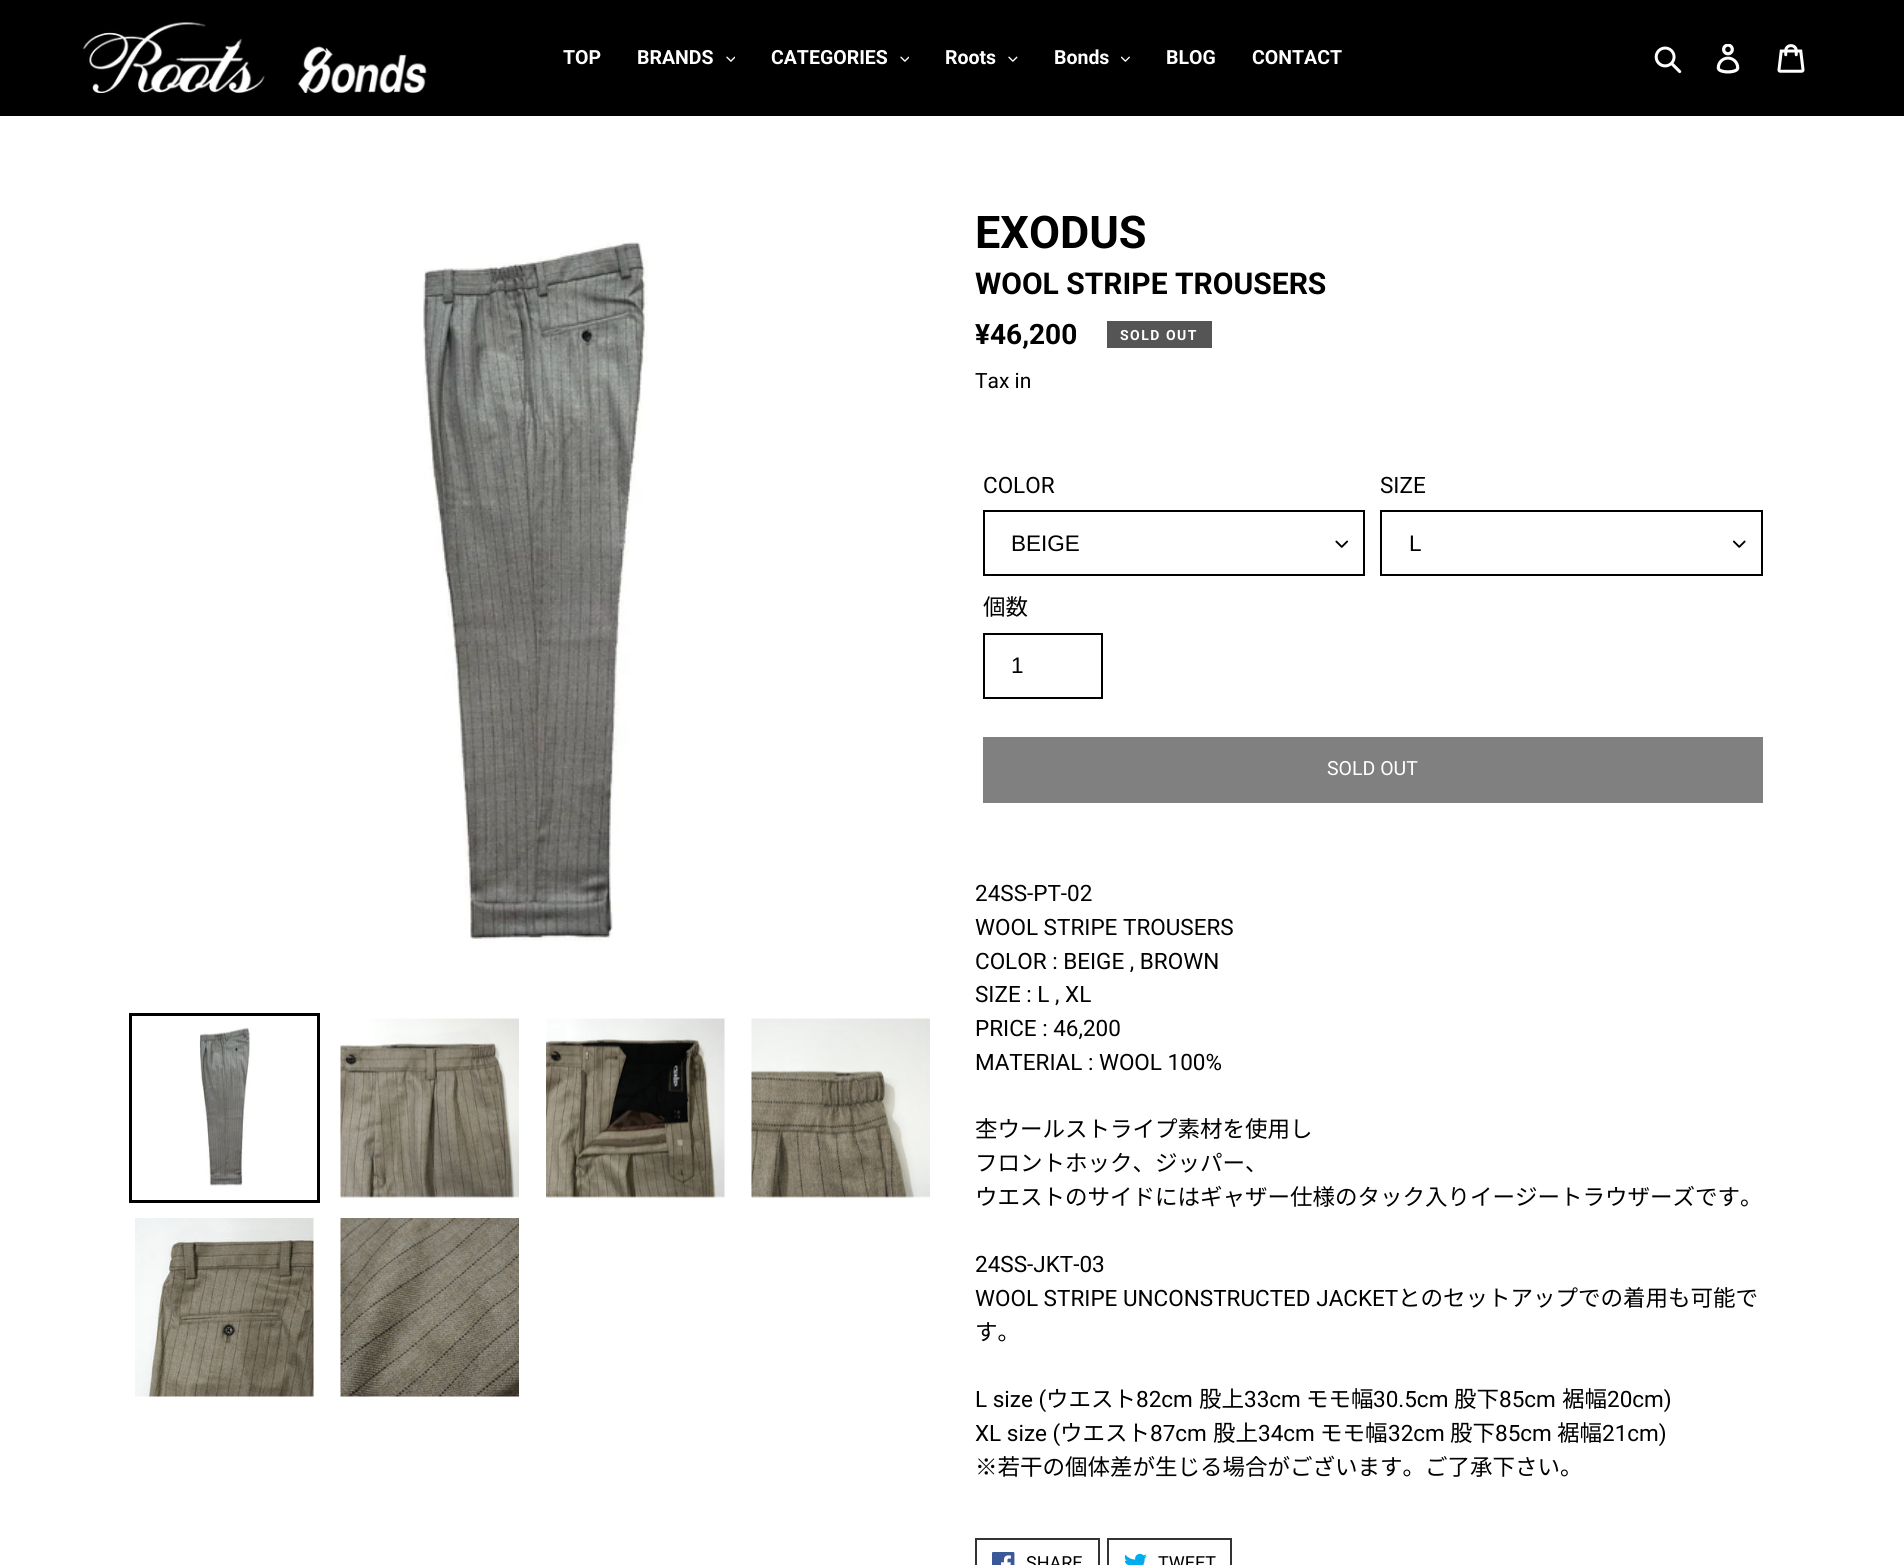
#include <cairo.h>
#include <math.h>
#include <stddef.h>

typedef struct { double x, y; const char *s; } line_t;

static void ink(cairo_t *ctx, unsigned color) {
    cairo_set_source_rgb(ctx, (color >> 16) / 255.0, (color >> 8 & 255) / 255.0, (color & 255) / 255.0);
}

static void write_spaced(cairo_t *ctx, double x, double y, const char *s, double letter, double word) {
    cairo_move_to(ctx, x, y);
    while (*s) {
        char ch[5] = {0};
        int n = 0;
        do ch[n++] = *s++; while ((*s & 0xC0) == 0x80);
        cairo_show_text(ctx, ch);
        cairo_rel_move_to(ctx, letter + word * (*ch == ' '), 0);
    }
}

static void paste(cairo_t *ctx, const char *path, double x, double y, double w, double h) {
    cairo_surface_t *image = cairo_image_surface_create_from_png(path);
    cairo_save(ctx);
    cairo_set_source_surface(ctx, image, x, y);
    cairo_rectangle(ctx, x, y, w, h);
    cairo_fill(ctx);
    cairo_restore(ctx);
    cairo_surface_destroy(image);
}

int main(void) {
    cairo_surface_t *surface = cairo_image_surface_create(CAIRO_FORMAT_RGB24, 1904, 1565);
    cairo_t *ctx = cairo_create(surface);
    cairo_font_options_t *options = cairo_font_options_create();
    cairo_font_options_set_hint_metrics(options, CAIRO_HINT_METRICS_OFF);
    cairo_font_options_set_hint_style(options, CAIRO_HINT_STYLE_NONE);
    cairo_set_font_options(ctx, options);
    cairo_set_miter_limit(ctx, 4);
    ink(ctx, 0xFFFFFF);
    cairo_paint(ctx);
    ink(ctx, 0x000000);
    cairo_rectangle(ctx, 0, 0, 1904, 116);
    cairo_fill(ctx);
    paste(ctx, "media/1.png", 82, 22, 345, 71);
    cairo_select_font_face(ctx, "Roboto", CAIRO_FONT_SLANT_NORMAL, CAIRO_FONT_WEIGHT_BOLD);
    cairo_set_font_size(ctx, 19.5);
    ink(ctx, 0xFFFFFF);
    cairo_move_to(ctx, 563, 64);
    cairo_show_text(ctx, "TOP");
    cairo_move_to(ctx, 637, 64);
    cairo_show_text(ctx, "BRANDS");
    paste(ctx, "media/2.png", 726, 56, 9, 6);
    cairo_move_to(ctx, 771, 64);
    cairo_show_text(ctx, "CATEGORIES");
    paste(ctx, "media/2.png", 900, 56, 9, 6);
    cairo_move_to(ctx, 945, 64);
    cairo_show_text(ctx, "Roots");
    paste(ctx, "media/3.png", 1008, 56, 10, 6);
    cairo_move_to(ctx, 1054, 64);
    cairo_show_text(ctx, "Bonds");
    paste(ctx, "media/4.png", 1121, 56, 9, 6);
    cairo_move_to(ctx, 1166, 64);
    cairo_show_text(ctx, "BLOG");
    cairo_move_to(ctx, 1252, 64);
    cairo_show_text(ctx, "CONTACT");
    paste(ctx, "media/5.png", 1654, 46, 28, 28);
    paste(ctx, "media/6.png", 1716, 44, 24, 30);
    paste(ctx, "media/7.png", 1777, 44, 28, 29);
    paste(ctx, "media/8.png", 423, 240, 225, 701);
    cairo_rectangle(ctx, 130.5, 1014.5, 188, 187);
    ink(ctx, 0x000000);
    cairo_set_line_width(ctx, 3);
    cairo_stroke(ctx);
    paste(ctx, "media/9.png", 199, 1027, 52, 160);
    paste(ctx, "media/10.png", 340, 1018, 179, 180);
    paste(ctx, "media/11.png", 546, 1018, 179, 180);
    paste(ctx, "media/12.png", 751, 1018, 179, 180);
    paste(ctx, "media/13.png", 135, 1218, 179, 179);
    paste(ctx, "media/14.png", 340, 1218, 179, 179);
    cairo_set_font_size(ctx, 45);
    cairo_move_to(ctx, 975, 248);
    cairo_show_text(ctx, "EXODUS");
    cairo_set_font_size(ctx, 30);
    cairo_move_to(ctx, 975, 294);
    cairo_show_text(ctx, "WOOL STRIPE TROUSERS");
    cairo_set_font_size(ctx, 28);
    cairo_move_to(ctx, 975, 344);
    cairo_show_text(ctx, "¥46,200");
    ink(ctx, 0x555555);
    cairo_rectangle(ctx, 1107, 321, 105, 27);
    cairo_fill(ctx);
    cairo_set_font_size(ctx, 14);
    ink(ctx, 0xFFFFFF);
    write_spaced(ctx, 1120, 340, "SOLD OUT", 1.5, 0);
    cairo_select_font_face(ctx, "Roboto", CAIRO_FONT_SLANT_NORMAL, CAIRO_FONT_WEIGHT_NORMAL);
    cairo_set_font_size(ctx, 21);
    ink(ctx, 0x000000);
    cairo_move_to(ctx, 975, 388);
    cairo_show_text(ctx, "Tax in");
    cairo_set_font_size(ctx, 22.5);
    cairo_move_to(ctx, 983, 493);
    cairo_show_text(ctx, "COLOR");
    paste(ctx, "media/15.png", 1335, 540, 14, 8);
    cairo_rectangle(ctx, 984, 511, 380, 64);
    cairo_set_line_width(ctx, 2);
    cairo_stroke(ctx);
    cairo_select_font_face(ctx, "Liberation Sans", CAIRO_FONT_SLANT_NORMAL, CAIRO_FONT_WEIGHT_NORMAL);
    cairo_move_to(ctx, 1011, 551);
    cairo_show_text(ctx, "BEIGE");
    cairo_select_font_face(ctx, "Roboto", CAIRO_FONT_SLANT_NORMAL, CAIRO_FONT_WEIGHT_NORMAL);
    cairo_move_to(ctx, 1380, 493);
    cairo_show_text(ctx, "SIZE");
    paste(ctx, "media/16.png", 1733, 540, 13, 8);
    cairo_rectangle(ctx, 1381, 511, 381, 64);
    cairo_stroke(ctx);
    cairo_select_font_face(ctx, "Liberation Sans", CAIRO_FONT_SLANT_NORMAL, CAIRO_FONT_WEIGHT_NORMAL);
    cairo_move_to(ctx, 1409, 551);
    cairo_show_text(ctx, "L");
    cairo_select_font_face(ctx, "Noto Sans JP", CAIRO_FONT_SLANT_NORMAL, CAIRO_FONT_WEIGHT_NORMAL);
    cairo_move_to(ctx, 983, 615);
    cairo_show_text(ctx, "個数");
    cairo_rectangle(ctx, 984, 634, 118, 64);
    cairo_stroke(ctx);
    cairo_select_font_face(ctx, "Liberation Sans", CAIRO_FONT_SLANT_NORMAL, CAIRO_FONT_WEIGHT_NORMAL);
    cairo_move_to(ctx, 1011, 673);
    cairo_show_text(ctx, "1");
    ink(ctx, 0x808080);
    cairo_rectangle(ctx, 983, 737, 780, 66);
    cairo_fill(ctx);
    cairo_select_font_face(ctx, "Roboto", CAIRO_FONT_SLANT_NORMAL, CAIRO_FONT_WEIGHT_NORMAL);
    cairo_set_font_size(ctx, 19.5);
    ink(ctx, 0xFFFFFF);
    cairo_move_to(ctx, 1327, 775);
    cairo_show_text(ctx, "SOLD OUT");
    cairo_set_font_size(ctx, 22.5);
    ink(ctx, 0x000000);
    {
        static const line_t items[] = {
            {975, 901, "24SS-PT-02"},
            {975, 935, "WOOL STRIPE TROUSERS"},
            {975, 969, "COLOR : BEIGE , BROWN"},
            {975, 1002, "SIZE : L , XL"},
            {975, 1036, "PRICE : 46,200"},
            {975, 1070, "MATERIAL : WOOL 100%"},
        };
        for (size_t i = 0; i < sizeof items / sizeof *items; i++) {
            cairo_move_to(ctx, items[i].x, items[i].y);
            cairo_show_text(ctx, items[i].s);
        }
    }
    cairo_select_font_face(ctx, "Noto Sans JP", CAIRO_FONT_SLANT_NORMAL, CAIRO_FONT_WEIGHT_NORMAL);
    {
        static const line_t items[] = {
            {975, 1137, "杢ウールストライプ素材を使用し"},
            {975, 1171, "フロントホック、ジッパー、"},
            {975, 1205, "ウエストのサイドにはギャザー仕様のタック入りイージートラウザーズです。"},
        };
        for (size_t i = 0; i < sizeof items / sizeof *items; i++) {
            cairo_move_to(ctx, items[i].x, items[i].y);
            cairo_show_text(ctx, items[i].s);
        }
    }
    cairo_select_font_face(ctx, "Roboto", CAIRO_FONT_SLANT_NORMAL, CAIRO_FONT_WEIGHT_NORMAL);
    cairo_move_to(ctx, 975, 1272);
    cairo_show_text(ctx, "24SS-JKT-03");
    cairo_move_to(ctx, 975, 1306);
    cairo_show_text(ctx, "WOOL STRIPE UNCONSTRUCTED JACKET");
    cairo_select_font_face(ctx, "Noto Sans JP", CAIRO_FONT_SLANT_NORMAL, CAIRO_FONT_WEIGHT_NORMAL);
    cairo_move_to(ctx, 1398, 1306);
    cairo_show_text(ctx, "とのセットアップでの着用も可能で");
    cairo_move_to(ctx, 975, 1340);
    cairo_show_text(ctx, "す。");
    cairo_select_font_face(ctx, "Roboto", CAIRO_FONT_SLANT_NORMAL, CAIRO_FONT_WEIGHT_NORMAL);
    cairo_move_to(ctx, 975, 1407);
    cairo_show_text(ctx, "L size (");
    cairo_select_font_face(ctx, "Noto Sans JP", CAIRO_FONT_SLANT_NORMAL, CAIRO_FONT_WEIGHT_NORMAL);
    cairo_move_to(ctx, 1046, 1407);
    cairo_show_text(ctx, "ウエスト");
    cairo_select_font_face(ctx, "Roboto", CAIRO_FONT_SLANT_NORMAL, CAIRO_FONT_WEIGHT_NORMAL);
    cairo_move_to(ctx, 1136, 1407);
    cairo_show_text(ctx, "82cm");
    cairo_select_font_face(ctx, "Noto Sans JP", CAIRO_FONT_SLANT_NORMAL, CAIRO_FONT_WEIGHT_NORMAL);
    cairo_move_to(ctx, 1199, 1407);
    cairo_show_text(ctx, "股上");
    cairo_select_font_face(ctx, "Roboto", CAIRO_FONT_SLANT_NORMAL, CAIRO_FONT_WEIGHT_NORMAL);
    cairo_move_to(ctx, 1244, 1407);
    cairo_show_text(ctx, "33cm");
    cairo_select_font_face(ctx, "Noto Sans JP", CAIRO_FONT_SLANT_NORMAL, CAIRO_FONT_WEIGHT_NORMAL);
    cairo_move_to(ctx, 1306, 1407);
    cairo_show_text(ctx, "モモ幅");
    cairo_select_font_face(ctx, "Roboto", CAIRO_FONT_SLANT_NORMAL, CAIRO_FONT_WEIGHT_NORMAL);
    cairo_move_to(ctx, 1373, 1407);
    cairo_show_text(ctx, "30.5cm");
    cairo_select_font_face(ctx, "Noto Sans JP", CAIRO_FONT_SLANT_NORMAL, CAIRO_FONT_WEIGHT_NORMAL);
    cairo_move_to(ctx, 1454, 1407);
    cairo_show_text(ctx, "股下");
    cairo_select_font_face(ctx, "Roboto", CAIRO_FONT_SLANT_NORMAL, CAIRO_FONT_WEIGHT_NORMAL);
    cairo_move_to(ctx, 1499, 1407);
    cairo_show_text(ctx, "85cm");
    cairo_select_font_face(ctx, "Noto Sans JP", CAIRO_FONT_SLANT_NORMAL, CAIRO_FONT_WEIGHT_NORMAL);
    cairo_move_to(ctx, 1562, 1407);
    cairo_show_text(ctx, "裾幅");
    cairo_select_font_face(ctx, "Roboto", CAIRO_FONT_SLANT_NORMAL, CAIRO_FONT_WEIGHT_NORMAL);
    cairo_move_to(ctx, 1607, 1407);
    cairo_show_text(ctx, "20cm)");
    cairo_move_to(ctx, 975, 1441);
    cairo_show_text(ctx, "XL size (");
    cairo_select_font_face(ctx, "Noto Sans JP", CAIRO_FONT_SLANT_NORMAL, CAIRO_FONT_WEIGHT_NORMAL);
    cairo_move_to(ctx, 1060, 1441);
    cairo_show_text(ctx, "ウエスト");
    cairo_select_font_face(ctx, "Roboto", CAIRO_FONT_SLANT_NORMAL, CAIRO_FONT_WEIGHT_NORMAL);
    cairo_move_to(ctx, 1150, 1441);
    cairo_show_text(ctx, "87cm");
    cairo_select_font_face(ctx, "Noto Sans JP", CAIRO_FONT_SLANT_NORMAL, CAIRO_FONT_WEIGHT_NORMAL);
    cairo_move_to(ctx, 1213, 1441);
    cairo_show_text(ctx, "股上");
    cairo_select_font_face(ctx, "Roboto", CAIRO_FONT_SLANT_NORMAL, CAIRO_FONT_WEIGHT_NORMAL);
    cairo_move_to(ctx, 1258, 1441);
    cairo_show_text(ctx, "34cm");
    cairo_select_font_face(ctx, "Noto Sans JP", CAIRO_FONT_SLANT_NORMAL, CAIRO_FONT_WEIGHT_NORMAL);
    cairo_move_to(ctx, 1320, 1441);
    cairo_show_text(ctx, "モモ幅");
    cairo_select_font_face(ctx, "Roboto", CAIRO_FONT_SLANT_NORMAL, CAIRO_FONT_WEIGHT_NORMAL);
    cairo_move_to(ctx, 1388, 1441);
    cairo_show_text(ctx, "32cm");
    cairo_select_font_face(ctx, "Noto Sans JP", CAIRO_FONT_SLANT_NORMAL, CAIRO_FONT_WEIGHT_NORMAL);
    cairo_move_to(ctx, 1450, 1441);
    cairo_show_text(ctx, "股下");
    cairo_select_font_face(ctx, "Roboto", CAIRO_FONT_SLANT_NORMAL, CAIRO_FONT_WEIGHT_NORMAL);
    cairo_move_to(ctx, 1495, 1441);
    cairo_show_text(ctx, "85cm");
    cairo_select_font_face(ctx, "Noto Sans JP", CAIRO_FONT_SLANT_NORMAL, CAIRO_FONT_WEIGHT_NORMAL);
    cairo_move_to(ctx, 1557, 1441);
    cairo_show_text(ctx, "裾幅");
    cairo_select_font_face(ctx, "Roboto", CAIRO_FONT_SLANT_NORMAL, CAIRO_FONT_WEIGHT_NORMAL);
    cairo_move_to(ctx, 1602, 1441);
    cairo_show_text(ctx, "21cm)");
    cairo_select_font_face(ctx, "Noto Sans JP", CAIRO_FONT_SLANT_NORMAL, CAIRO_FONT_WEIGHT_NORMAL);
    cairo_move_to(ctx, 975, 1475);
    cairo_show_text(ctx, "※若干の個体差が生じる場合がございます。ご了承下さい。");
    cairo_rectangle(ctx, 976, 1539, 123, 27);
    ink(ctx, 0x333333);
    cairo_stroke(ctx);
    paste(ctx, "media/17.png", 992, 1552, 23, 13);
    cairo_select_font_face(ctx, "Roboto", CAIRO_FONT_SLANT_NORMAL, CAIRO_FONT_WEIGHT_NORMAL);
    cairo_set_font_size(ctx, 18);
    ink(ctx, 0x000000);
    cairo_move_to(ctx, 1026, 1569);
    cairo_show_text(ctx, "SHARE");
    cairo_rectangle(ctx, 1108, 1539, 123, 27);
    ink(ctx, 0x333333);
    cairo_stroke(ctx);
    paste(ctx, "media/18.png", 1124, 1553, 23, 12);
    ink(ctx, 0x000000);
    cairo_move_to(ctx, 1158, 1569);
    cairo_show_text(ctx, "TWEET");
    cairo_surface_write_to_png(surface, "image.png");
    cairo_font_options_destroy(options);
    cairo_destroy(ctx);
    cairo_surface_destroy(surface);
    return 0;
}
